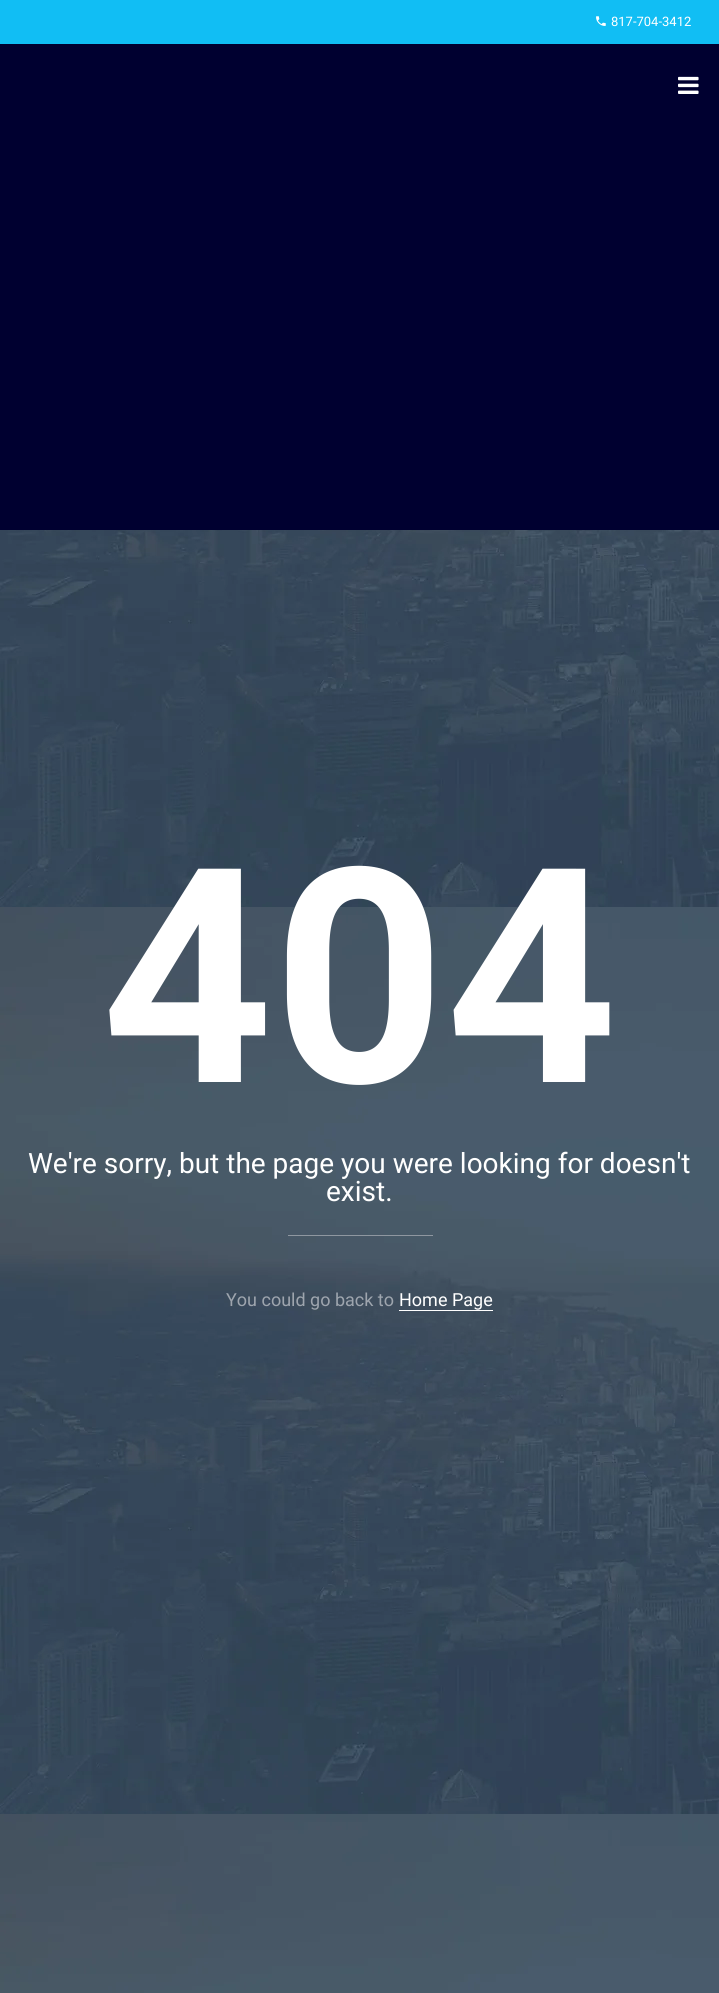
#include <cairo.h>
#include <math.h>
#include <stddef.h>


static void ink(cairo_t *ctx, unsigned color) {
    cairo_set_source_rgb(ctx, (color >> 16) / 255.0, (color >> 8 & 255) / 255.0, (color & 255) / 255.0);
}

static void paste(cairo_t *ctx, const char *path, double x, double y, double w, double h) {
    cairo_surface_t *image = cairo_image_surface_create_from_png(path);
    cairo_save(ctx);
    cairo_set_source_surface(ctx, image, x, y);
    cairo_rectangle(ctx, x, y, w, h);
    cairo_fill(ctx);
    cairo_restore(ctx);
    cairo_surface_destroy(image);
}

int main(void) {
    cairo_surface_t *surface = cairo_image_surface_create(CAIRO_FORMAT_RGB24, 719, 1993);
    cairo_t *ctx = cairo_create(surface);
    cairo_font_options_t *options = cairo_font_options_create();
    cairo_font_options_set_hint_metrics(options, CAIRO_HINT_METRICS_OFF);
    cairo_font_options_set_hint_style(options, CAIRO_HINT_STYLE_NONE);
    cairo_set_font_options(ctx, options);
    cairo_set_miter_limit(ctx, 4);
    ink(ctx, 0xFFFFFF);
    cairo_paint(ctx);
    paste(ctx, "media/1.png", 0, 530, 719, 1463);
    ink(ctx, 0x11BEF4);
    cairo_rectangle(ctx, 0, 0, 719, 44);
    cairo_fill(ctx);
    paste(ctx, "media/2.png", 596, 16, 10, 10);
    cairo_select_font_face(ctx, "Roboto", CAIRO_FONT_SLANT_NORMAL, CAIRO_FONT_WEIGHT_NORMAL);
    cairo_set_font_size(ctx, 13);
    ink(ctx, 0xFFFFFF);
    cairo_move_to(ctx, 611, 26);
    cairo_show_text(ctx, "817-704-3412");
    ink(ctx, 0x000030);
    cairo_rectangle(ctx, 0, 44, 719, 486);
    cairo_fill(ctx);
    paste(ctx, "media/3.png", 678, 76, 21, 18);
    cairo_select_font_face(ctx, "Roboto", CAIRO_FONT_SLANT_NORMAL, CAIRO_FONT_WEIGHT_BOLD);
    cairo_set_font_size(ctx, 300);
    ink(ctx, 0xFFFFFF);
    cairo_move_to(ctx, 101, 1082);
    cairo_show_text(ctx, "404");
    cairo_select_font_face(ctx, "Roboto", CAIRO_FONT_SLANT_NORMAL, CAIRO_FONT_WEIGHT_NORMAL);
    cairo_set_font_size(ctx, 28);
    cairo_move_to(ctx, 28, 1173);
    cairo_show_text(ctx, "We're sorry, but the page you were looking for doesn't");
    cairo_move_to(ctx, 326, 1201);
    cairo_show_text(ctx, "exist.");
    ink(ctx, 0x8F97A0);
    cairo_rectangle(ctx, 288, 1235, 145, 1);
    cairo_fill(ctx);
    cairo_set_font_size(ctx, 18);
    ink(ctx, 0x9EA5AE);
    cairo_move_to(ctx, 226, 1306);
    cairo_show_text(ctx, "You could go back to");
    ink(ctx, 0xFFFFFF);
    cairo_move_to(ctx, 399, 1306);
    cairo_show_text(ctx, "Home Page");
    cairo_rectangle(ctx, 399, 1310, 94, 1);
    cairo_fill(ctx);
    cairo_surface_write_to_png(surface, "image.png");
    cairo_font_options_destroy(options);
    cairo_destroy(ctx);
    cairo_surface_destroy(surface);
    return 0;
}
